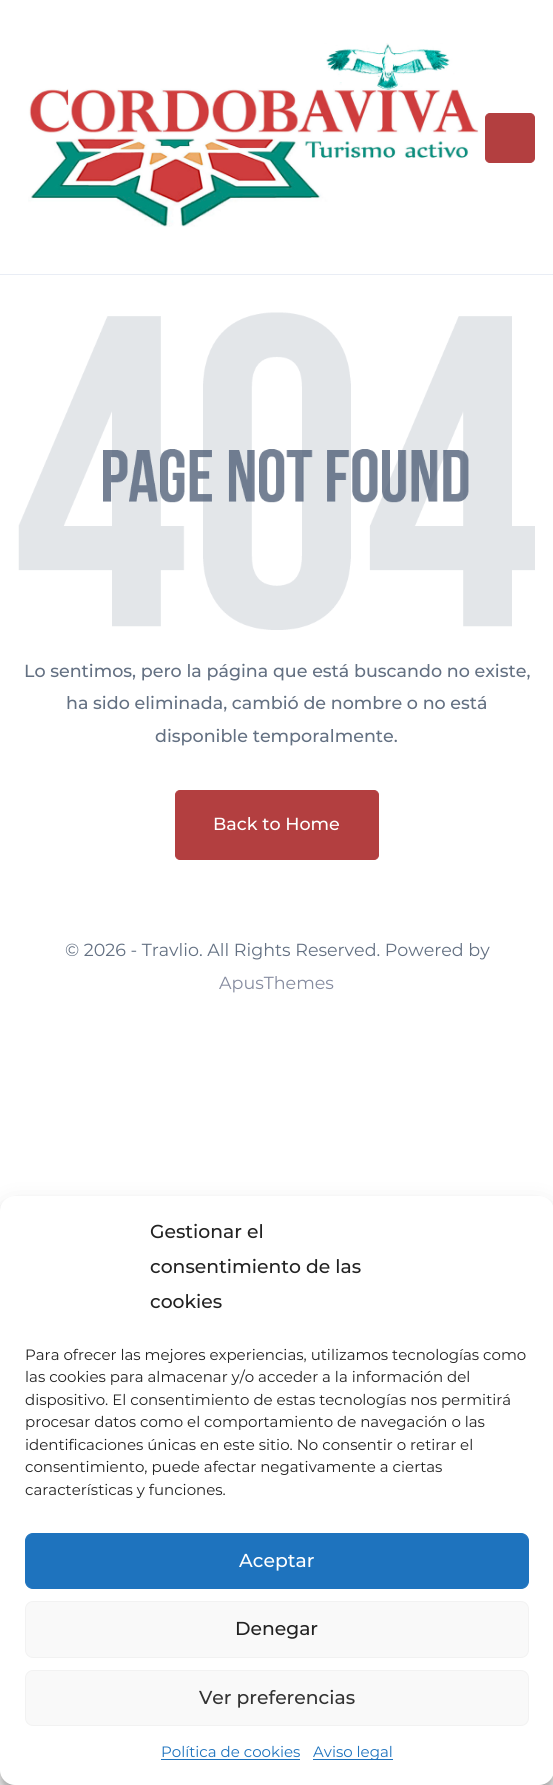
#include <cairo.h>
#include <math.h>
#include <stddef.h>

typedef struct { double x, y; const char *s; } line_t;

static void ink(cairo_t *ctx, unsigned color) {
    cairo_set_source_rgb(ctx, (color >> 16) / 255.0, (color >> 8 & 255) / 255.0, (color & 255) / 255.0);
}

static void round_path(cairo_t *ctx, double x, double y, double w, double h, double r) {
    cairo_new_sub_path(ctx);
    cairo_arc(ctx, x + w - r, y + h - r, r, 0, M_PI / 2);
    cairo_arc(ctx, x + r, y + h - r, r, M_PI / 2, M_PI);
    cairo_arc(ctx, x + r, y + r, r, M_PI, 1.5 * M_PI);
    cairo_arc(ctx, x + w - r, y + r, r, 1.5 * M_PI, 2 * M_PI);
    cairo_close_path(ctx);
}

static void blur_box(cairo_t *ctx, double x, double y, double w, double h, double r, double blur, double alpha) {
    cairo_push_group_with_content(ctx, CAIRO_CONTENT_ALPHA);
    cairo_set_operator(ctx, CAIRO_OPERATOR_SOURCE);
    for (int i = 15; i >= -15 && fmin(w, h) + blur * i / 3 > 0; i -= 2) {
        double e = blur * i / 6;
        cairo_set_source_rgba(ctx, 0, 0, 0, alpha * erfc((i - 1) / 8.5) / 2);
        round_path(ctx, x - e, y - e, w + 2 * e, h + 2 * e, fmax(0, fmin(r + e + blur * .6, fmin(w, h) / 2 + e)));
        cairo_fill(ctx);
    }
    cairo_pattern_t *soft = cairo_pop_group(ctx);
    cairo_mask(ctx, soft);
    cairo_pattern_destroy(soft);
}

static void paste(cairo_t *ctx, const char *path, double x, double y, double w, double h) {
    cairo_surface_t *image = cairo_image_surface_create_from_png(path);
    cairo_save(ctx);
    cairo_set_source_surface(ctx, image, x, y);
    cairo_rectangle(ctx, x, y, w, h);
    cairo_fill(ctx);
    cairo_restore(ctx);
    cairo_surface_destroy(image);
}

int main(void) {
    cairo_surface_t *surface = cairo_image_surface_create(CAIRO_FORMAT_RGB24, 553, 1785);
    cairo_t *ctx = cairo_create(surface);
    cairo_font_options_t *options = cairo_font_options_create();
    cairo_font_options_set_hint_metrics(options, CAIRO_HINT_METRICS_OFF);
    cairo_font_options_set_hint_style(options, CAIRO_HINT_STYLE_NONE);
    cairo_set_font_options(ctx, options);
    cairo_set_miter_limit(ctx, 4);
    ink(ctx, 0xFFFFFF);
    cairo_paint(ctx);
    ink(ctx, 0xE9EDF5);
    cairo_rectangle(ctx, 0, 274, 553, 1);
    cairo_fill(ctx);
    paste(ctx, "media/1.png", 28, 43, 451, 184);
    ink(ctx, 0xB33F40);
    round_path(ctx, 485.5, 113.5, 49, 49, 4.5);
    cairo_fill_preserve(ctx);
    cairo_set_line_width(ctx, 1);
    cairo_stroke(ctx);
    paste(ctx, "media/2.png", 18, 312, 517, 318);
    cairo_select_font_face(ctx, "Montserrat Medium", CAIRO_FONT_SLANT_NORMAL, CAIRO_FONT_WEIGHT_NORMAL);
    cairo_set_font_size(ctx, 17.5);
    ink(ctx, 0x637082);
    {
        static const line_t items[] = {
            {24, 677, "Lo sentimos, pero la página que está buscando no existe,"},
            {66, 709, "ha sido eliminada, cambió de nombre o no está"},
            {155, 742, "disponible temporalmente."},
        };
        for (size_t i = 0; i < sizeof items / sizeof *items; i++) {
            cairo_move_to(ctx, items[i].x, items[i].y);
            cairo_show_text(ctx, items[i].s);
        }
    }
    ink(ctx, 0xB33F40);
    round_path(ctx, 175.5, 790.5, 203, 69, 4.5);
    cairo_fill_preserve(ctx);
    cairo_stroke(ctx);
    ink(ctx, 0xFFFFFF);
    cairo_move_to(ctx, 213, 830);
    cairo_show_text(ctx, "Back to Home");
    cairo_select_font_face(ctx, "Montserrat", CAIRO_FONT_SLANT_NORMAL, CAIRO_FONT_WEIGHT_NORMAL);
    ink(ctx, 0x637082);
    cairo_move_to(ctx, 65, 956);
    cairo_show_text(ctx, "© 2026 - Travlio. All Rights Reserved. Powered by");
    ink(ctx, 0x858B9F);
    cairo_move_to(ctx, 219, 989);
    cairo_show_text(ctx, "ApusThemes");
    ink(ctx, 0x000000);
    blur_box(ctx, 0, 1204, 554, 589, 15, 4, 0.23);
    blur_box(ctx, 0, 1209, 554, 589, 15, 12.5, 0.19);
    ink(ctx, 0xFFFFFF);
    round_path(ctx, 0, 1196, 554, 589, 15);
    cairo_fill(ctx);
    cairo_select_font_face(ctx, "Montserrat Medium", CAIRO_FONT_SLANT_NORMAL, CAIRO_FONT_WEIGHT_NORMAL);
    cairo_set_font_size(ctx, 18.75);
    ink(ctx, 0x222222);
    {
        static const line_t items[] = {
            {150, 1238, "Gestionar el"},
            {150, 1273, "consentimiento de las"},
            {150, 1308, "cookies"},
        };
        for (size_t i = 0; i < sizeof items / sizeof *items; i++) {
            cairo_move_to(ctx, items[i].x, items[i].y);
            cairo_show_text(ctx, items[i].s);
        }
    }
    cairo_select_font_face(ctx, "Montserrat", CAIRO_FONT_SLANT_NORMAL, CAIRO_FONT_WEIGHT_NORMAL);
    cairo_set_font_size(ctx, 15);
    {
        static const line_t items[] = {
            {25, 1360, "Para ofrecer las mejores experiencias, utilizamos tecnologías como"},
            {25, 1382, "las cookies para almacenar y/o acceder a la información del"},
            {25, 1405, "dispositivo. El consentimiento de estas tecnologías nos permitirá"},
            {25, 1427, "procesar datos como el comportamiento de navegación o las"},
            {25, 1450, "identificaciones únicas en este sitio. No consentir o retirar el"},
            {25, 1472, "consentimiento, puede afectar negativamente a ciertas"},
            {25, 1495, "características y funciones."},
        };
        for (size_t i = 0; i < sizeof items / sizeof *items; i++) {
            cairo_move_to(ctx, items[i].x, items[i].y);
            cairo_show_text(ctx, items[i].s);
        }
    }
    ink(ctx, 0x1E73BE);
    round_path(ctx, 25.5, 1533.5, 503, 55, 7.5);
    cairo_fill_preserve(ctx);
    cairo_stroke(ctx);
    cairo_select_font_face(ctx, "Montserrat Medium", CAIRO_FONT_SLANT_NORMAL, CAIRO_FONT_WEIGHT_NORMAL);
    cairo_set_font_size(ctx, 18.75);
    ink(ctx, 0xFFFFFF);
    cairo_move_to(ctx, 239, 1567);
    cairo_show_text(ctx, "Aceptar");
    ink(ctx, 0xF9F9F9);
    round_path(ctx, 25.5, 1601.5, 503, 56, 7.5);
    cairo_fill_preserve(ctx);
    ink(ctx, 0xF2F2F2);
    cairo_stroke(ctx);
    ink(ctx, 0x222222);
    cairo_move_to(ctx, 235, 1635);
    cairo_show_text(ctx, "Denegar");
    ink(ctx, 0xF9F9F9);
    round_path(ctx, 25.5, 1670.5, 503, 55, 7.5);
    cairo_fill_preserve(ctx);
    ink(ctx, 0xF2F2F2);
    cairo_stroke(ctx);
    ink(ctx, 0x333333);
    cairo_move_to(ctx, 199, 1704);
    cairo_show_text(ctx, "Ver preferencias");
    cairo_select_font_face(ctx, "Montserrat", CAIRO_FONT_SLANT_NORMAL, CAIRO_FONT_WEIGHT_NORMAL);
    cairo_set_font_size(ctx, 15);
    ink(ctx, 0x1E73BE);
    cairo_move_to(ctx, 161, 1757);
    cairo_show_text(ctx, "Política de cookies");
    cairo_rectangle(ctx, 161, 1759, 139, 1);
    cairo_fill(ctx);
    cairo_rectangle(ctx, 313, 1759, 80, 1);
    cairo_fill(ctx);
    cairo_move_to(ctx, 313, 1757);
    cairo_show_text(ctx, "Aviso legal");
    cairo_surface_write_to_png(surface, "image.png");
    cairo_font_options_destroy(options);
    cairo_destroy(ctx);
    cairo_surface_destroy(surface);
    return 0;
}
